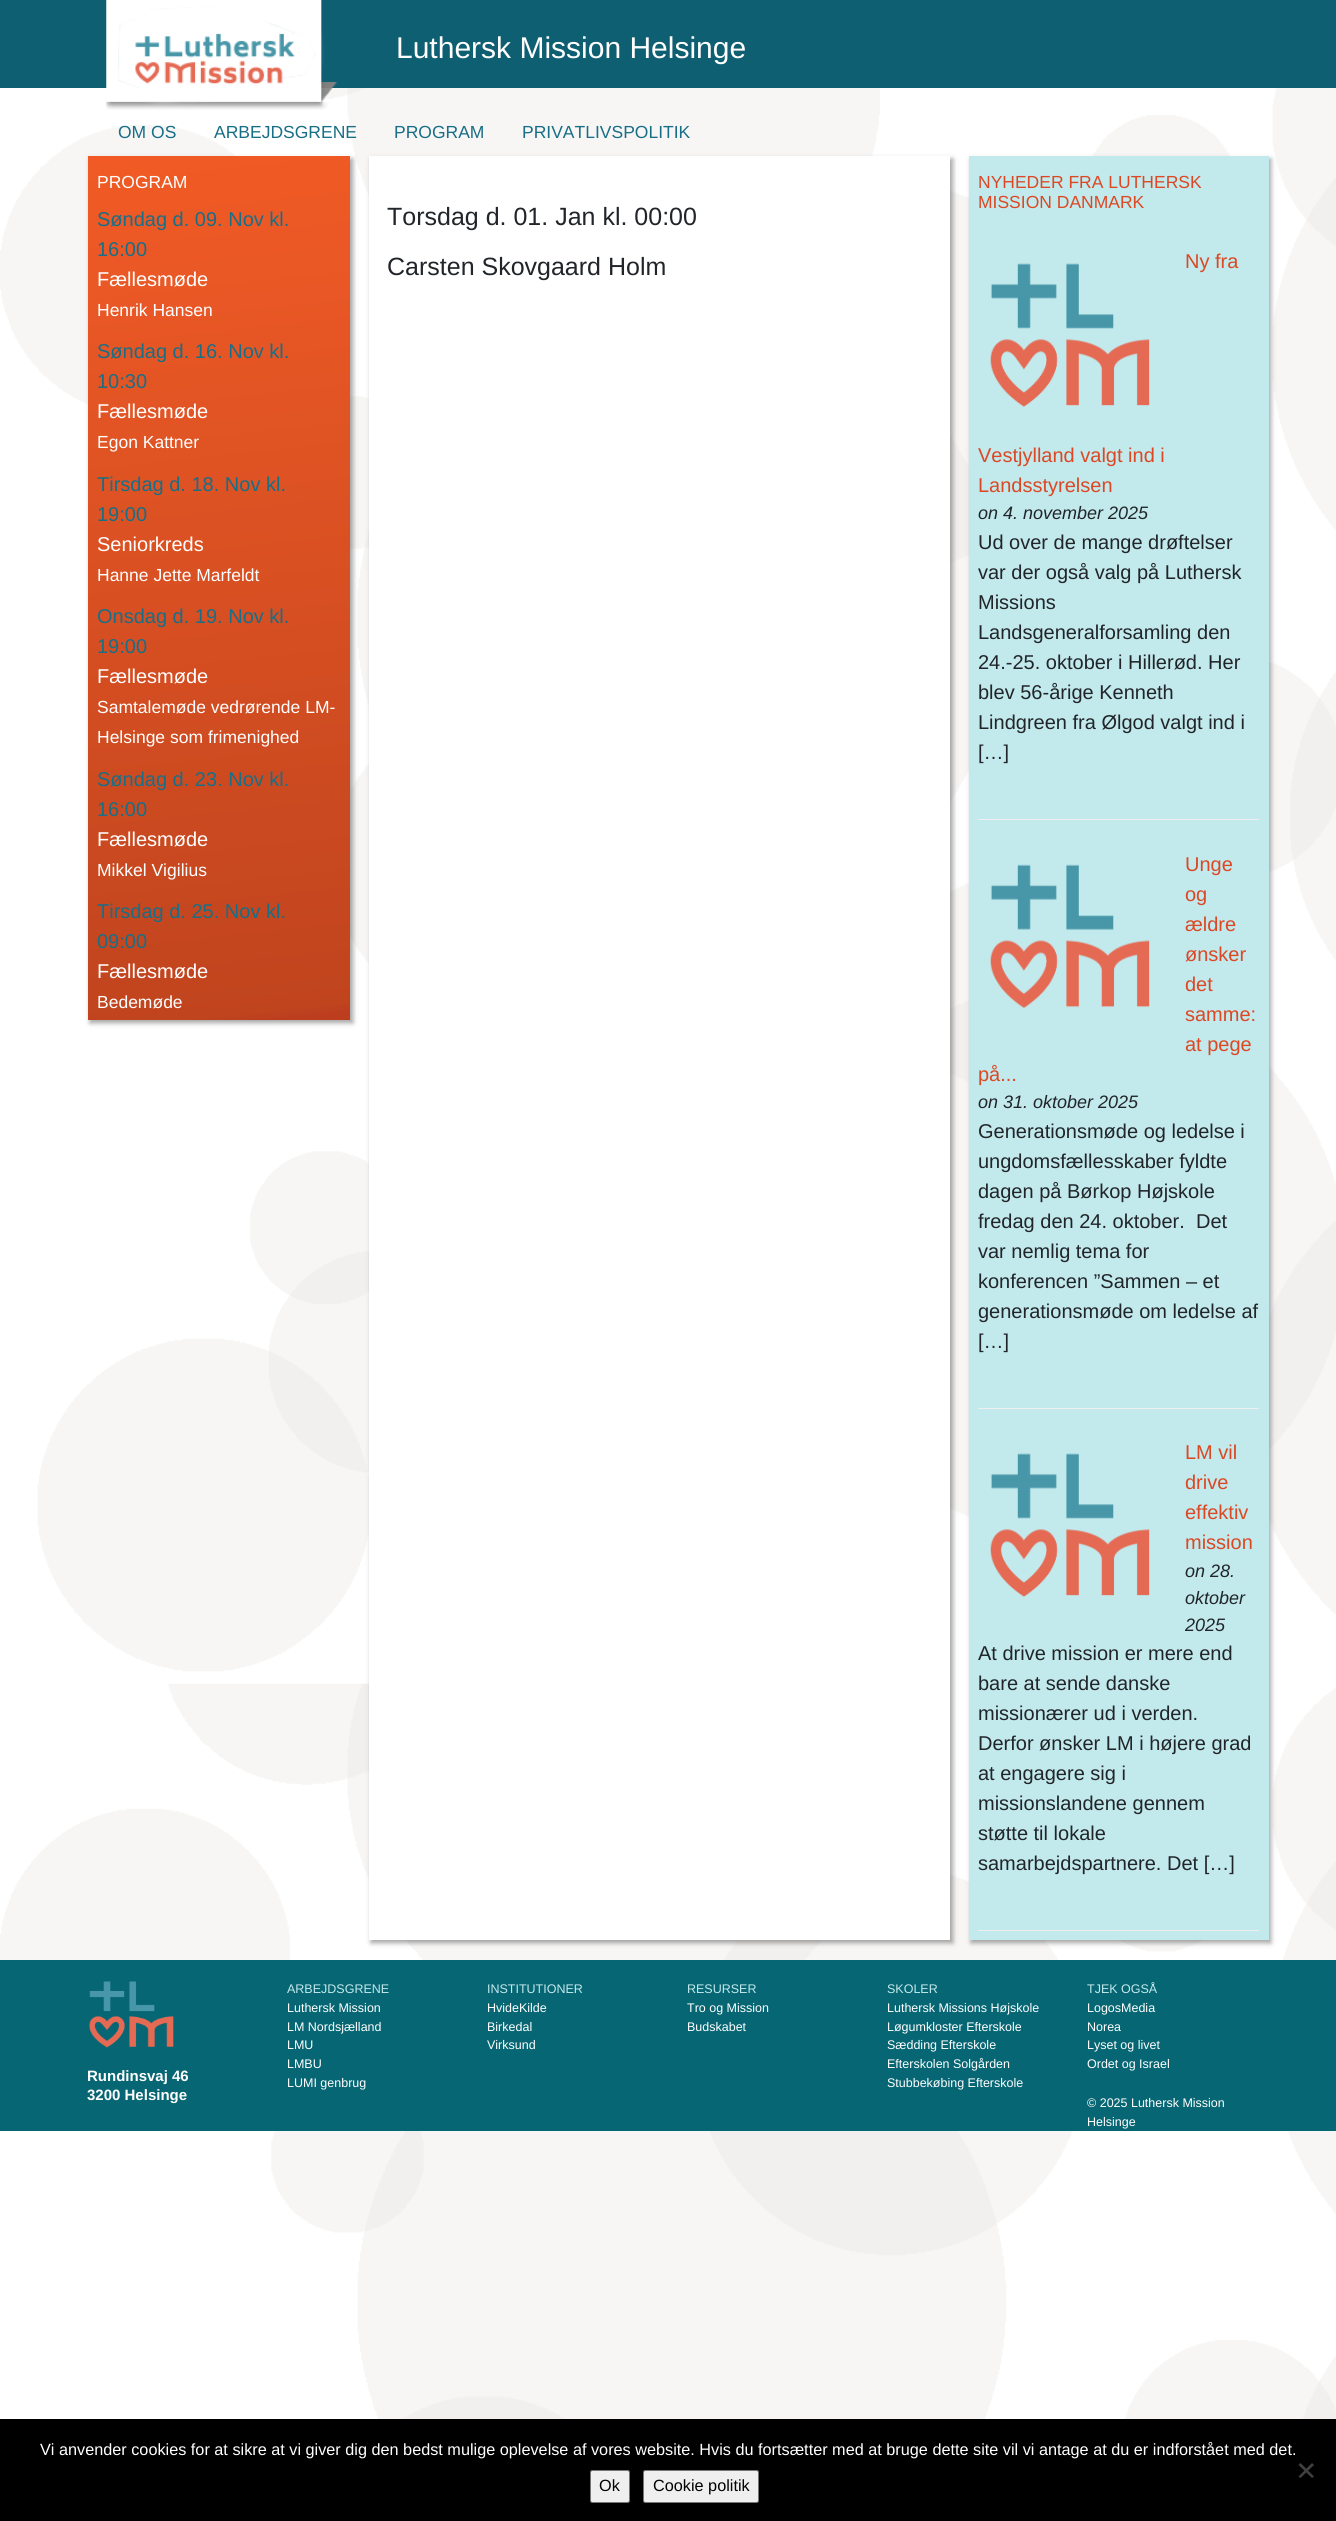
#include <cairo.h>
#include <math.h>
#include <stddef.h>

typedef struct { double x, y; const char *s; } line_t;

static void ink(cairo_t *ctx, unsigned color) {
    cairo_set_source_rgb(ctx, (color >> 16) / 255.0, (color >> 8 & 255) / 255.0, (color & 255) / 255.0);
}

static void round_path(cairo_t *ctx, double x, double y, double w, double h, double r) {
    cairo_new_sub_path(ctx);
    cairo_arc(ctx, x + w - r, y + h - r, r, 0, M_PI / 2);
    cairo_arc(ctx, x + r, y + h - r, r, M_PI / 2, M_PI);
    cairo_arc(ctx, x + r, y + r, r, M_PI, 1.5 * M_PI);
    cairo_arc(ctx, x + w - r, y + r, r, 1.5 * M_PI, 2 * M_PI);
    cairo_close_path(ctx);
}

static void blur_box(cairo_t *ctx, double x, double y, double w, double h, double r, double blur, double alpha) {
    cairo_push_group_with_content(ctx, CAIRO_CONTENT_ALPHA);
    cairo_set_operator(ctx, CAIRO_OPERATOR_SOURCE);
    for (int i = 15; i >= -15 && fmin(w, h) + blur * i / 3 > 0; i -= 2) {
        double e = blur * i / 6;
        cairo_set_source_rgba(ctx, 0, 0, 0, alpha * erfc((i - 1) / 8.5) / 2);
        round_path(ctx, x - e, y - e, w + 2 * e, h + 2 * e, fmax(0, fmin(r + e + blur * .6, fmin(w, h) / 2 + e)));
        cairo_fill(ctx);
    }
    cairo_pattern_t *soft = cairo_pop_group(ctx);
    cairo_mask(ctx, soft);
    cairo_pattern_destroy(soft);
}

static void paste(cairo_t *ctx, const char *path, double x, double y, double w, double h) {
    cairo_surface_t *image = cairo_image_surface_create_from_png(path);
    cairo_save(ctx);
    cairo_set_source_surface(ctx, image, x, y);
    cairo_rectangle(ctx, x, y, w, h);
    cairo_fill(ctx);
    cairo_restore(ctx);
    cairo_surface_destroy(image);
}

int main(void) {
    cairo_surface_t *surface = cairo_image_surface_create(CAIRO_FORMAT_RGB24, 1336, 2521);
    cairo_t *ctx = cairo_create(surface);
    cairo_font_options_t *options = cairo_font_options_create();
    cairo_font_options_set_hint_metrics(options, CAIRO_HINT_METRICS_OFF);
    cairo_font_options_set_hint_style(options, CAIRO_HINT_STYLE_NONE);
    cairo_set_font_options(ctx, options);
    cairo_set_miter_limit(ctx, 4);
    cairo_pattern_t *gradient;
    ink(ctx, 0xFFFFFF);
    cairo_paint(ctx);
    paste(ctx, "media/1.png", 0, 88, 1336, 2331);
    ink(ctx, 0x0F5F73);
    cairo_rectangle(ctx, 0, 0, 1336, 88);
    cairo_fill(ctx);
    paste(ctx, "media/2.png", 106, 0, 231, 110);
    cairo_select_font_face(ctx, "Liberation Sans", CAIRO_FONT_SLANT_NORMAL, CAIRO_FONT_WEIGHT_NORMAL);
    cairo_set_font_size(ctx, 30);
    ink(ctx, 0xFFFFFF);
    cairo_move_to(ctx, 396, 58);
    cairo_show_text(ctx, "Luthersk Mission Helsinge");
    cairo_set_source_rgba(ctx, 1, 1, 1, 0.1);
    cairo_rectangle(ctx, 106, 88, 226, 20);
    cairo_fill(ctx);
    cairo_set_font_size(ctx, 17.5);
    ink(ctx, 0x186E86);
    {
        static const line_t items[] = {
            {118, 138, "OM OS"},
            {214, 138, "ARBEJDSGRENE"},
            {394, 138, "PROGRAM"},
            {522, 138, "PRIVATLIVSPOLITIK"},
        };
        for (size_t i = 0; i < sizeof items / sizeof *items; i++) {
            cairo_move_to(ctx, items[i].x, items[i].y);
            cairo_show_text(ctx, items[i].s);
        }
    }
    ink(ctx, 0x323232);
    blur_box(ctx, 90, 159, 263, 864, 0, 2.5, 0.45);
    gradient = cairo_pattern_create_linear(172, 147, 265, 1029);
    cairo_pattern_add_color_stop_rgba(gradient, 0, 0.945, 0.353, 0.141, 1);
    cairo_pattern_add_color_stop_rgba(gradient, 0.14, 0.918, 0.345, 0.145, 1);
    cairo_pattern_add_color_stop_rgba(gradient, 0.98, 0.753, 0.267, 0.118, 1);
    cairo_pattern_add_color_stop_rgba(gradient, 0.99, 0.737, 0.243, 0.122, 1);
    cairo_set_source(ctx, gradient);
    cairo_pattern_destroy(gradient);
    cairo_rectangle(ctx, 88, 156, 262, 864);
    cairo_fill(ctx);
    ink(ctx, 0xFFFFFF);
    cairo_move_to(ctx, 97, 188);
    cairo_show_text(ctx, "PROGRAM");
    cairo_set_font_size(ctx, 20);
    ink(ctx, 0x186E86);
    cairo_move_to(ctx, 97, 226);
    cairo_show_text(ctx, "Søndag d. 09. Nov kl.");
    cairo_move_to(ctx, 97, 256);
    cairo_show_text(ctx, "16:00");
    ink(ctx, 0xFFFFFF);
    cairo_move_to(ctx, 97, 286);
    cairo_show_text(ctx, "Fællesmøde");
    cairo_set_font_size(ctx, 17.5);
    cairo_move_to(ctx, 97, 316);
    cairo_show_text(ctx, "Henrik Hansen");
    cairo_set_font_size(ctx, 20);
    ink(ctx, 0x186E86);
    cairo_move_to(ctx, 97, 358);
    cairo_show_text(ctx, "Søndag d. 16. Nov kl.");
    cairo_move_to(ctx, 97, 388);
    cairo_show_text(ctx, "10:30");
    ink(ctx, 0xFFFFFF);
    cairo_move_to(ctx, 97, 418);
    cairo_show_text(ctx, "Fællesmøde");
    cairo_set_font_size(ctx, 17.5);
    cairo_move_to(ctx, 97, 448);
    cairo_show_text(ctx, "Egon Kattner");
    cairo_set_font_size(ctx, 20);
    ink(ctx, 0x186E86);
    cairo_move_to(ctx, 97, 491);
    cairo_show_text(ctx, "Tirsdag d. 18. Nov kl.");
    cairo_move_to(ctx, 97, 521);
    cairo_show_text(ctx, "19:00");
    ink(ctx, 0xFFFFFF);
    cairo_move_to(ctx, 97, 551);
    cairo_show_text(ctx, "Seniorkreds");
    cairo_set_font_size(ctx, 17.5);
    cairo_move_to(ctx, 97, 581);
    cairo_show_text(ctx, "Hanne Jette Marfeldt");
    cairo_set_font_size(ctx, 20);
    ink(ctx, 0x186E86);
    cairo_move_to(ctx, 97, 623);
    cairo_show_text(ctx, "Onsdag d. 19. Nov kl.");
    cairo_move_to(ctx, 97, 653);
    cairo_show_text(ctx, "19:00");
    ink(ctx, 0xFFFFFF);
    cairo_move_to(ctx, 97, 683);
    cairo_show_text(ctx, "Fællesmøde");
    cairo_set_font_size(ctx, 17.5);
    cairo_move_to(ctx, 97, 713);
    cairo_show_text(ctx, "Samtalemøde vedrørende LM-");
    cairo_move_to(ctx, 97, 743);
    cairo_show_text(ctx, "Helsinge som frimenighed");
    cairo_set_font_size(ctx, 20);
    ink(ctx, 0x186E86);
    cairo_move_to(ctx, 97, 786);
    cairo_show_text(ctx, "Søndag d. 23. Nov kl.");
    cairo_move_to(ctx, 97, 816);
    cairo_show_text(ctx, "16:00");
    ink(ctx, 0xFFFFFF);
    cairo_move_to(ctx, 97, 846);
    cairo_show_text(ctx, "Fællesmøde");
    cairo_set_font_size(ctx, 17.5);
    cairo_move_to(ctx, 97, 876);
    cairo_show_text(ctx, "Mikkel Vigilius");
    cairo_set_font_size(ctx, 20);
    ink(ctx, 0x186E86);
    cairo_move_to(ctx, 97, 918);
    cairo_show_text(ctx, "Tirsdag d. 25. Nov kl.");
    cairo_move_to(ctx, 97, 948);
    cairo_show_text(ctx, "09:00");
    ink(ctx, 0xFFFFFF);
    cairo_move_to(ctx, 97, 978);
    cairo_show_text(ctx, "Fællesmøde");
    cairo_set_font_size(ctx, 17.5);
    cairo_move_to(ctx, 97, 1008);
    cairo_show_text(ctx, "Bedemøde");
    ink(ctx, 0x323232);
    blur_box(ctx, 371, 159, 582, 1784, 0, 2.5, 0.45);
    ink(ctx, 0xFFFFFF);
    cairo_rectangle(ctx, 369, 156, 581, 1784);
    cairo_fill(ctx);
    cairo_set_font_size(ctx, 25);
    ink(ctx, 0x212529);
    cairo_move_to(ctx, 387, 225);
    cairo_show_text(ctx, "Torsdag d. 01. Jan kl. 00:00");
    cairo_move_to(ctx, 387, 275);
    cairo_show_text(ctx, "Carsten Skovgaard Holm");
    ink(ctx, 0x323232);
    blur_box(ctx, 971, 159, 300, 1784, 0, 2.5, 0.45);
    ink(ctx, 0xC2E9EC);
    cairo_rectangle(ctx, 969, 156, 300, 1784);
    cairo_fill(ctx);
    cairo_set_font_size(ctx, 17.5);
    ink(ctx, 0xDC4823);
    cairo_move_to(ctx, 978, 188);
    cairo_show_text(ctx, "NYHEDER FRA LUTHERSK");
    cairo_move_to(ctx, 978, 208);
    cairo_show_text(ctx, "MISSION DANMARK");
    ink(ctx, 0xEEEEEE);
    cairo_rectangle(ctx, 978, 819, 281, 1);
    cairo_fill(ctx);
    paste(ctx, "media/3.png", 990, 263, 160, 145);
    cairo_set_font_size(ctx, 20);
    ink(ctx, 0xDC4823);
    {
        static const line_t items[] = {
            {1185, 268, "Ny fra"},
            {978, 462, "Vestjylland valgt ind i"},
            {978, 492, "Landsstyrelsen"},
        };
        for (size_t i = 0; i < sizeof items / sizeof *items; i++) {
            cairo_move_to(ctx, items[i].x, items[i].y);
            cairo_show_text(ctx, items[i].s);
        }
    }
    cairo_select_font_face(ctx, "Liberation Sans", CAIRO_FONT_SLANT_ITALIC, CAIRO_FONT_WEIGHT_NORMAL);
    cairo_set_font_size(ctx, 18);
    ink(ctx, 0x212529);
    cairo_move_to(ctx, 978, 519);
    cairo_show_text(ctx, "on 4. november 2025");
    cairo_select_font_face(ctx, "Liberation Sans", CAIRO_FONT_SLANT_NORMAL, CAIRO_FONT_WEIGHT_NORMAL);
    cairo_set_font_size(ctx, 20);
    {
        static const line_t items[] = {
            {978, 549, "Ud over de mange drøftelser"},
            {978, 579, "var der også valg på Luthersk"},
            {978, 609, "Missions"},
            {978, 639, "Landsgeneralforsamling den"},
            {978, 669, "24.-25. oktober i Hillerød. Her"},
            {978, 699, "blev 56-årige Kenneth"},
            {978, 729, "Lindgreen fra Ølgod valgt ind i"},
            {978, 759, "[…]"},
        };
        for (size_t i = 0; i < sizeof items / sizeof *items; i++) {
            cairo_move_to(ctx, items[i].x, items[i].y);
            cairo_show_text(ctx, items[i].s);
        }
    }
    ink(ctx, 0xEEEEEE);
    cairo_rectangle(ctx, 978, 1408, 281, 1);
    cairo_fill(ctx);
    paste(ctx, "media/4.png", 990, 864, 160, 145);
    ink(ctx, 0xDC4823);
    {
        static const line_t items[] = {
            {1185, 871, "Unge"},
            {1185, 901, "og"},
            {1185, 931, "ældre"},
            {1185, 961, "ønsker"},
            {1185, 991, "det"},
            {1185, 1021, "samme:"},
            {1185, 1051, "at pege"},
            {978, 1081, "på..."},
        };
        for (size_t i = 0; i < sizeof items / sizeof *items; i++) {
            cairo_move_to(ctx, items[i].x, items[i].y);
            cairo_show_text(ctx, items[i].s);
        }
    }
    cairo_select_font_face(ctx, "Liberation Sans", CAIRO_FONT_SLANT_ITALIC, CAIRO_FONT_WEIGHT_NORMAL);
    cairo_set_font_size(ctx, 18);
    ink(ctx, 0x212529);
    cairo_move_to(ctx, 978, 1108);
    cairo_show_text(ctx, "on 31. oktober 2025");
    cairo_select_font_face(ctx, "Liberation Sans", CAIRO_FONT_SLANT_NORMAL, CAIRO_FONT_WEIGHT_NORMAL);
    cairo_set_font_size(ctx, 20);
    {
        static const line_t items[] = {
            {978, 1138, "Generationsmøde og ledelse i"},
            {978, 1168, "ungdomsfællesskaber fyldte"},
            {978, 1198, "dagen på Børkop Højskole"},
            {978, 1228, "fredag den 24. oktober."},
            {1196, 1228, "Det"},
            {978, 1258, "var nemlig tema for"},
            {978, 1288, "konferencen ”Sammen – et"},
            {978, 1318, "generationsmøde om ledelse af"},
            {978, 1348, "[…]"},
        };
        for (size_t i = 0; i < sizeof items / sizeof *items; i++) {
            cairo_move_to(ctx, items[i].x, items[i].y);
            cairo_show_text(ctx, items[i].s);
        }
    }
    ink(ctx, 0xEEEEEE);
    cairo_rectangle(ctx, 978, 1930, 281, 1);
    cairo_fill(ctx);
    ink(ctx, 0xDC4823);
    cairo_move_to(ctx, 1185, 1459);
    cairo_show_text(ctx, "LM vil");
    paste(ctx, "media/3.png", 990, 1453, 160, 145);
    {
        static const line_t items[] = {
            {1185, 1489, "drive"},
            {1185, 1519, "effektiv"},
            {1185, 1549, "mission"},
        };
        for (size_t i = 0; i < sizeof items / sizeof *items; i++) {
            cairo_move_to(ctx, items[i].x, items[i].y);
            cairo_show_text(ctx, items[i].s);
        }
    }
    cairo_select_font_face(ctx, "Liberation Sans", CAIRO_FONT_SLANT_ITALIC, CAIRO_FONT_WEIGHT_NORMAL);
    cairo_set_font_size(ctx, 18);
    ink(ctx, 0x212529);
    {
        static const line_t items[] = {
            {1185, 1577, "on 28."},
            {1185, 1604, "oktober"},
            {1185, 1631, "2025"},
        };
        for (size_t i = 0; i < sizeof items / sizeof *items; i++) {
            cairo_move_to(ctx, items[i].x, items[i].y);
            cairo_show_text(ctx, items[i].s);
        }
    }
    cairo_select_font_face(ctx, "Liberation Sans", CAIRO_FONT_SLANT_NORMAL, CAIRO_FONT_WEIGHT_NORMAL);
    cairo_set_font_size(ctx, 20);
    {
        static const line_t items[] = {
            {978, 1660, "At drive mission er mere end"},
            {978, 1690, "bare at sende danske"},
            {978, 1720, "missionærer ud i verden."},
            {978, 1750, "Derfor ønsker LM i højere grad"},
            {978, 1780, "at engagere sig i"},
            {978, 1810, "missionslandene gennem"},
            {978, 1840, "støtte til lokale"},
            {978, 1870, "samarbejdspartnere. Det […]"},
        };
        for (size_t i = 0; i < sizeof items / sizeof *items; i++) {
            cairo_move_to(ctx, items[i].x, items[i].y);
            cairo_show_text(ctx, items[i].s);
        }
    }
    ink(ctx, 0x076673);
    cairo_rectangle(ctx, 0, 1960, 1336, 171);
    cairo_fill(ctx);
    paste(ctx, "media/5.png", 89, 1981, 85, 67);
    cairo_select_font_face(ctx, "Liberation Sans", CAIRO_FONT_SLANT_NORMAL, CAIRO_FONT_WEIGHT_BOLD);
    cairo_set_font_size(ctx, 15);
    ink(ctx, 0xFFFFFF);
    cairo_move_to(ctx, 87, 2081);
    cairo_show_text(ctx, "Rundinsvaj 46");
    cairo_move_to(ctx, 87, 2100);
    cairo_show_text(ctx, "3200 Helsinge");
    cairo_select_font_face(ctx, "Liberation Sans", CAIRO_FONT_SLANT_NORMAL, CAIRO_FONT_WEIGHT_NORMAL);
    cairo_set_font_size(ctx, 12.5);
    ink(ctx, 0xC2E9EC);
    cairo_move_to(ctx, 287, 1993);
    cairo_show_text(ctx, "ARBEJDSGRENE");
    ink(ctx, 0xFFFFFF);
    {
        static const line_t items[] = {
            {287, 2012, "Luthersk Mission"},
            {287, 2031, "LM Nordsjælland"},
            {287, 2049, "LMU"},
            {287, 2068, "LMBU"},
            {287, 2087, "LUMI genbrug"},
        };
        for (size_t i = 0; i < sizeof items / sizeof *items; i++) {
            cairo_move_to(ctx, items[i].x, items[i].y);
            cairo_show_text(ctx, items[i].s);
        }
    }
    ink(ctx, 0xC2E9EC);
    cairo_move_to(ctx, 487, 1993);
    cairo_show_text(ctx, "INSTITUTIONER");
    ink(ctx, 0xFFFFFF);
    {
        static const line_t items[] = {
            {487, 2012, "HvideKilde"},
            {487, 2031, "Birkedal"},
            {487, 2049, "Virksund"},
        };
        for (size_t i = 0; i < sizeof items / sizeof *items; i++) {
            cairo_move_to(ctx, items[i].x, items[i].y);
            cairo_show_text(ctx, items[i].s);
        }
    }
    ink(ctx, 0xC2E9EC);
    cairo_move_to(ctx, 687, 1993);
    cairo_show_text(ctx, "RESURSER");
    ink(ctx, 0xFFFFFF);
    cairo_move_to(ctx, 687, 2012);
    cairo_show_text(ctx, "Tro og Mission");
    cairo_move_to(ctx, 687, 2031);
    cairo_show_text(ctx, "Budskabet");
    ink(ctx, 0xC2E9EC);
    cairo_move_to(ctx, 887, 1993);
    cairo_show_text(ctx, "SKOLER");
    ink(ctx, 0xFFFFFF);
    {
        static const line_t items[] = {
            {887, 2012, "Luthersk Missions Højskole"},
            {887, 2031, "Løgumkloster Efterskole"},
            {887, 2049, "Sædding Efterskole"},
            {887, 2068, "Efterskolen Solgården"},
            {887, 2087, "Stubbekøbing Efterskole"},
        };
        for (size_t i = 0; i < sizeof items / sizeof *items; i++) {
            cairo_move_to(ctx, items[i].x, items[i].y);
            cairo_show_text(ctx, items[i].s);
        }
    }
    ink(ctx, 0xC2E9EC);
    cairo_move_to(ctx, 1087, 1993);
    cairo_show_text(ctx, "TJEK OGSÅ");
    ink(ctx, 0xFFFFFF);
    {
        static const line_t items[] = {
            {1087, 2012, "LogosMedia"},
            {1087, 2031, "Norea"},
            {1087, 2049, "Lyset og livet"},
            {1087, 2068, "Ordet og Israel"},
            {1087, 2107, "© 2025 Luthersk Mission"},
            {1087, 2126, "Helsinge"},
        };
        for (size_t i = 0; i < sizeof items / sizeof *items; i++) {
            cairo_move_to(ctx, items[i].x, items[i].y);
            cairo_show_text(ctx, items[i].s);
        }
    }
    ink(ctx, 0x000000);
    cairo_rectangle(ctx, 0, 2419, 1336, 102);
    cairo_fill(ctx);
    cairo_set_font_size(ctx, 16.25);
    ink(ctx, 0xFFFFFF);
    cairo_move_to(ctx, 40, 2455);
    cairo_show_text(ctx, "Vi anvender cookies for at sikre at vi giver dig den bedst mulige oplevelse af vores website. Hvis du fortsætter med at bruge dette site vil vi antage at du er indforstået med det.");
    ink(ctx, 0x404040);
    cairo_new_path(ctx);
    cairo_move_to(ctx, 1312, 2463);
    cairo_line_to(ctx, 1314, 2465);
    cairo_line_to(ctx, 1300.5, 2478);
    cairo_line_to(ctx, 1298.5, 2476.5);
    cairo_close_path(ctx);
    cairo_fill(ctx);
    cairo_new_path(ctx);
    cairo_move_to(ctx, 1298.5, 2465);
    cairo_line_to(ctx, 1300.5, 2463);
    cairo_line_to(ctx, 1314, 2476.5);
    cairo_line_to(ctx, 1312, 2478);
    cairo_close_path(ctx);
    cairo_fill(ctx);
    ink(ctx, 0xEFEFEF);
    round_path(ctx, 590.5, 2470.5, 39, 32, 2);
    cairo_fill_preserve(ctx);
    ink(ctx, 0x767676);
    cairo_set_line_width(ctx, 1);
    cairo_stroke(ctx);
    ink(ctx, 0x000000);
    cairo_move_to(ctx, 599, 2491);
    cairo_show_text(ctx, "Ok");
    ink(ctx, 0xEFEFEF);
    round_path(ctx, 643.5, 2470.5, 115, 32, 2);
    cairo_fill_preserve(ctx);
    ink(ctx, 0x767676);
    cairo_stroke(ctx);
    ink(ctx, 0x000000);
    cairo_move_to(ctx, 653, 2491);
    cairo_show_text(ctx, "Cookie politik");
    cairo_surface_write_to_png(surface, "image.png");
    cairo_font_options_destroy(options);
    cairo_destroy(ctx);
    cairo_surface_destroy(surface);
    return 0;
}
